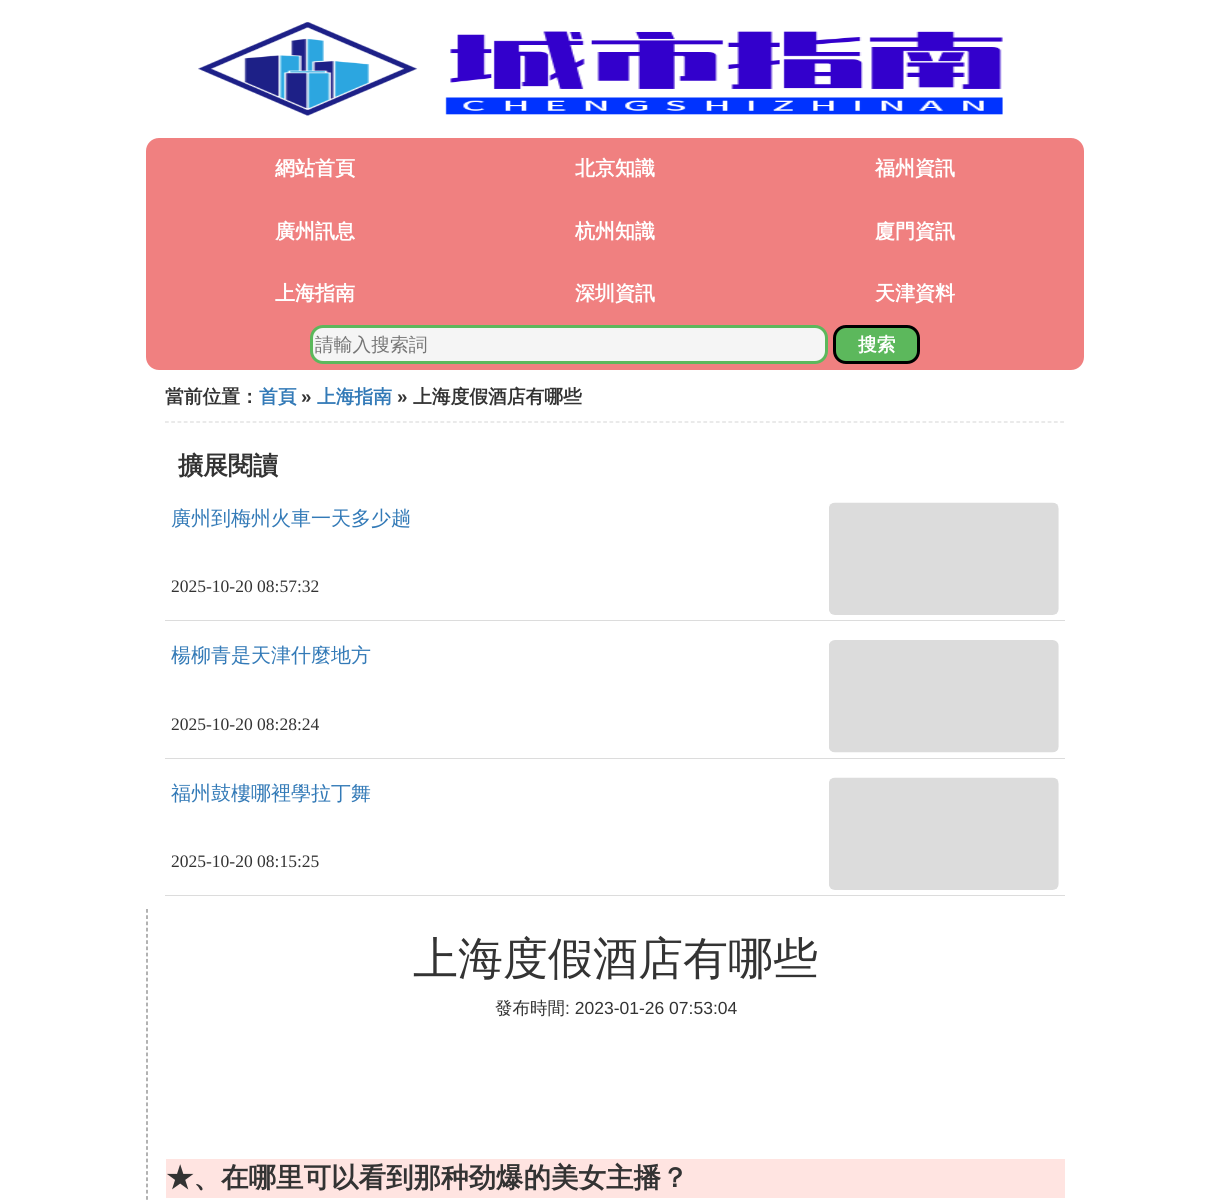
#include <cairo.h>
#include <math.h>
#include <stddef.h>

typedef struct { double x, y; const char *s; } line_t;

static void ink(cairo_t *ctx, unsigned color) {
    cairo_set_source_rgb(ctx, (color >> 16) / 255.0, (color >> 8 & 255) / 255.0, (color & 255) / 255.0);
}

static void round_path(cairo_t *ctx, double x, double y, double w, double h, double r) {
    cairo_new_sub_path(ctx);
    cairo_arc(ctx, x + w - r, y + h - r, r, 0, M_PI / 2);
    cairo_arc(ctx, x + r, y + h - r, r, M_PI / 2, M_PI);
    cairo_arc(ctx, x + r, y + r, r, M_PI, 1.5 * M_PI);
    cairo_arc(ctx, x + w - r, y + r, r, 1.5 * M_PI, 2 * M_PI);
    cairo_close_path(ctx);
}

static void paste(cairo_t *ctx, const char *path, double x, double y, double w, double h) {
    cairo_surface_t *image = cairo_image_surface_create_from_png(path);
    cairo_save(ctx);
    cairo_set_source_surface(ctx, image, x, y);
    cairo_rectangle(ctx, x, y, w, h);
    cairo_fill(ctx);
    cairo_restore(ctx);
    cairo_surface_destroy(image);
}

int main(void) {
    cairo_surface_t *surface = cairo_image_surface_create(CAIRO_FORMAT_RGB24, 1229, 1201);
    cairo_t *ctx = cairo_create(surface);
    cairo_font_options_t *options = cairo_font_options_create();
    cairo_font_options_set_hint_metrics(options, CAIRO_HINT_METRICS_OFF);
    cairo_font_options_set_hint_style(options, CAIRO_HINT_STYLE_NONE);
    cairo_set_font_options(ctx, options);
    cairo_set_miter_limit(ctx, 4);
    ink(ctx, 0xFFFFFF);
    cairo_paint(ctx);
    paste(ctx, "media/1.png", 198, 22, 805, 94);
    ink(ctx, 0xF08080);
    round_path(ctx, 146, 138, 938, 232, 13);
    cairo_fill(ctx);
    cairo_select_font_face(ctx, "WenQuanYi Zen Hei", CAIRO_FONT_SLANT_NORMAL, CAIRO_FONT_WEIGHT_BOLD);
    cairo_set_font_size(ctx, 20);
    ink(ctx, 0xFFFFFF);
    {
        static const line_t items[] = {
            {275, 175, "網站首頁"},
            {575, 175, "北京知識"},
            {875, 175, "福州資訊"},
            {275, 238, "廣州訊息"},
            {575, 238, "杭州知識"},
            {875, 238, "廈門資訊"},
            {275, 300, "上海指南"},
            {575, 300, "深圳資訊"},
            {875, 300, "天津資料"},
        };
        for (size_t i = 0; i < sizeof items / sizeof *items; i++) {
            cairo_move_to(ctx, items[i].x, items[i].y);
            cairo_show_text(ctx, items[i].s);
        }
    }
    ink(ctx, 0xF5F5F5);
    round_path(ctx, 311.5, 326.5, 515, 36, 11.5);
    cairo_fill_preserve(ctx);
    ink(ctx, 0x5CB85C);
    cairo_set_line_width(ctx, 3);
    cairo_stroke(ctx);
    cairo_select_font_face(ctx, "WenQuanYi Zen Hei Medium", CAIRO_FONT_SLANT_NORMAL, CAIRO_FONT_WEIGHT_NORMAL);
    cairo_set_font_size(ctx, 18.75);
    ink(ctx, 0x757575);
    cairo_move_to(ctx, 315, 351);
    cairo_show_text(ctx, "請輸入搜索詞");
    ink(ctx, 0x5CB85C);
    round_path(ctx, 834.5, 326.5, 84, 36, 11.5);
    cairo_fill_preserve(ctx);
    ink(ctx, 0x000000);
    cairo_stroke(ctx);
    cairo_select_font_face(ctx, "WenQuanYi Zen Hei", CAIRO_FONT_SLANT_NORMAL, CAIRO_FONT_WEIGHT_BOLD);
    ink(ctx, 0xFFFFFF);
    cairo_move_to(ctx, 858, 351);
    cairo_show_text(ctx, "搜索");
    cairo_new_path(ctx);
    cairo_move_to(ctx, 165, 422);
    cairo_line_to(ctx, 1065, 422);
    ink(ctx, 0xDCDCDC);
    cairo_set_line_width(ctx, 1.2);
    cairo_set_dash(ctx, (double[]){3.75, 2.51}, 2, 0);
    cairo_stroke(ctx);
    ink(ctx, 0x333333);
    cairo_move_to(ctx, 165, 403);
    cairo_show_text(ctx, "當前位置：");
    ink(ctx, 0x337AB7);
    cairo_move_to(ctx, 259, 403);
    cairo_show_text(ctx, "首頁");
    cairo_select_font_face(ctx, "Liberation Sans", CAIRO_FONT_SLANT_NORMAL, CAIRO_FONT_WEIGHT_BOLD);
    ink(ctx, 0x333333);
    cairo_move_to(ctx, 301, 403);
    cairo_show_text(ctx, "»");
    cairo_select_font_face(ctx, "WenQuanYi Zen Hei", CAIRO_FONT_SLANT_NORMAL, CAIRO_FONT_WEIGHT_BOLD);
    ink(ctx, 0x337AB7);
    cairo_move_to(ctx, 317, 403);
    cairo_show_text(ctx, "上海指南");
    cairo_select_font_face(ctx, "Liberation Sans", CAIRO_FONT_SLANT_NORMAL, CAIRO_FONT_WEIGHT_BOLD);
    ink(ctx, 0x333333);
    cairo_move_to(ctx, 397, 403);
    cairo_show_text(ctx, "»");
    cairo_select_font_face(ctx, "WenQuanYi Zen Hei", CAIRO_FONT_SLANT_NORMAL, CAIRO_FONT_WEIGHT_BOLD);
    cairo_move_to(ctx, 413, 403);
    cairo_show_text(ctx, "上海度假酒店有哪些");
    cairo_set_font_size(ctx, 25);
    cairo_move_to(ctx, 178, 474);
    cairo_show_text(ctx, "擴展閱讀");
    ink(ctx, 0xDCDCDC);
    cairo_rectangle(ctx, 165, 620, 900, 1);
    cairo_fill(ctx);
    cairo_select_font_face(ctx, "WenQuanYi Zen Hei Medium", CAIRO_FONT_SLANT_NORMAL, CAIRO_FONT_WEIGHT_NORMAL);
    cairo_set_font_size(ctx, 20);
    ink(ctx, 0x337AB7);
    cairo_move_to(ctx, 171, 525);
    cairo_show_text(ctx, "廣州到梅州火車一天多少趟");
    cairo_select_font_face(ctx, "Liberation Serif", CAIRO_FONT_SLANT_NORMAL, CAIRO_FONT_WEIGHT_NORMAL);
    cairo_set_font_size(ctx, 17.5);
    ink(ctx, 0x333333);
    cairo_move_to(ctx, 171, 592);
    cairo_show_text(ctx, "2025-10-20 08:57:32");
    paste(ctx, "media/2.png", 829, 502, 230, 113);
    ink(ctx, 0xDCDCDC);
    cairo_rectangle(ctx, 165, 758, 900, 1);
    cairo_fill(ctx);
    cairo_select_font_face(ctx, "WenQuanYi Zen Hei Medium", CAIRO_FONT_SLANT_NORMAL, CAIRO_FONT_WEIGHT_NORMAL);
    cairo_set_font_size(ctx, 20);
    ink(ctx, 0x337AB7);
    cairo_move_to(ctx, 171, 662);
    cairo_show_text(ctx, "楊柳青是天津什麼地方");
    cairo_select_font_face(ctx, "Liberation Serif", CAIRO_FONT_SLANT_NORMAL, CAIRO_FONT_WEIGHT_NORMAL);
    cairo_set_font_size(ctx, 17.5);
    ink(ctx, 0x333333);
    cairo_move_to(ctx, 171, 730);
    cairo_show_text(ctx, "2025-10-20 08:28:24");
    paste(ctx, "media/3.png", 829, 640, 230, 113);
    ink(ctx, 0xDCDCDC);
    cairo_rectangle(ctx, 165, 895, 900, 1);
    cairo_fill(ctx);
    cairo_select_font_face(ctx, "WenQuanYi Zen Hei Medium", CAIRO_FONT_SLANT_NORMAL, CAIRO_FONT_WEIGHT_NORMAL);
    cairo_set_font_size(ctx, 20);
    ink(ctx, 0x337AB7);
    cairo_move_to(ctx, 171, 800);
    cairo_show_text(ctx, "福州鼓樓哪裡學拉丁舞");
    cairo_select_font_face(ctx, "Liberation Serif", CAIRO_FONT_SLANT_NORMAL, CAIRO_FONT_WEIGHT_NORMAL);
    cairo_set_font_size(ctx, 17.5);
    ink(ctx, 0x333333);
    cairo_move_to(ctx, 171, 867);
    cairo_show_text(ctx, "2025-10-20 08:15:25");
    paste(ctx, "media/2.png", 829, 777, 230, 113);
    cairo_new_path(ctx);
    cairo_move_to(ctx, 147, 909);
    cairo_line_to(ctx, 147, 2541);
    ink(ctx, 0x808080);
    cairo_set_dash(ctx, (double[]){3.75, 2.49}, 2, 0);
    cairo_stroke(ctx);
    cairo_select_font_face(ctx, "WenQuanYi Zen Hei Medium", CAIRO_FONT_SLANT_NORMAL, CAIRO_FONT_WEIGHT_NORMAL);
    cairo_set_font_size(ctx, 45);
    ink(ctx, 0x333333);
    cairo_move_to(ctx, 413, 974);
    cairo_show_text(ctx, "上海度假酒店有哪些");
    cairo_set_font_size(ctx, 17.5);
    cairo_move_to(ctx, 495, 1014);
    cairo_show_text(ctx, "發布時間");
    cairo_select_font_face(ctx, "Liberation Sans", CAIRO_FONT_SLANT_NORMAL, CAIRO_FONT_WEIGHT_NORMAL);
    cairo_move_to(ctx, 565, 1014);
    cairo_show_text(ctx, ": 2023-01-26 07:53:04");
    ink(ctx, 0xFFE4E1);
    cairo_rectangle(ctx, 166, 1159, 899, 39);
    cairo_fill(ctx);
    cairo_select_font_face(ctx, "WenQuanYi Zen Hei", CAIRO_FONT_SLANT_NORMAL, CAIRO_FONT_WEIGHT_BOLD);
    cairo_set_font_size(ctx, 27.5);
    ink(ctx, 0x333333);
    cairo_move_to(ctx, 166, 1187);
    cairo_show_text(ctx, "★、在哪里可以看到那种劲爆的美女主播？");
    cairo_surface_write_to_png(surface, "image.png");
    cairo_font_options_destroy(options);
    cairo_destroy(ctx);
    cairo_surface_destroy(surface);
    return 0;
}
